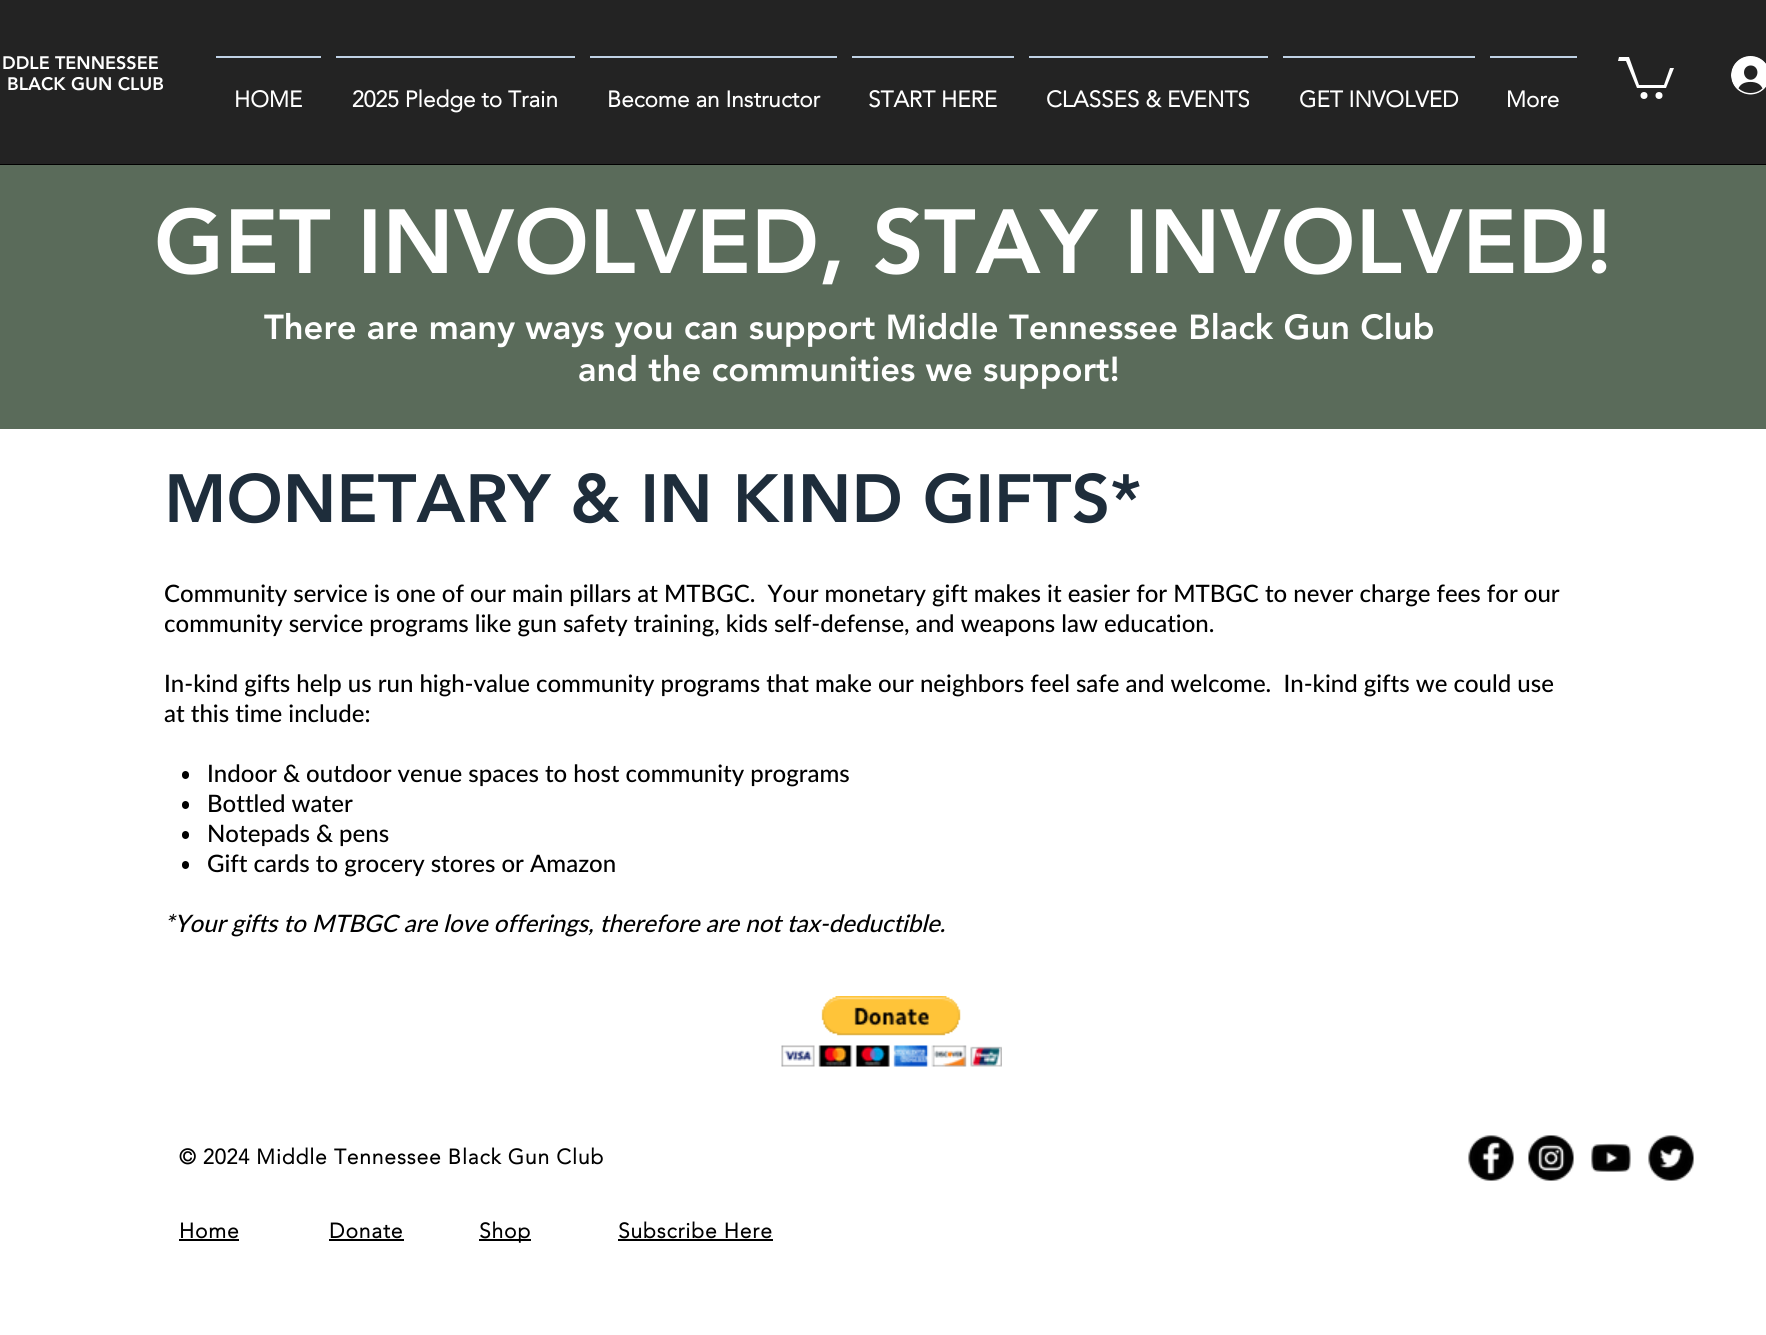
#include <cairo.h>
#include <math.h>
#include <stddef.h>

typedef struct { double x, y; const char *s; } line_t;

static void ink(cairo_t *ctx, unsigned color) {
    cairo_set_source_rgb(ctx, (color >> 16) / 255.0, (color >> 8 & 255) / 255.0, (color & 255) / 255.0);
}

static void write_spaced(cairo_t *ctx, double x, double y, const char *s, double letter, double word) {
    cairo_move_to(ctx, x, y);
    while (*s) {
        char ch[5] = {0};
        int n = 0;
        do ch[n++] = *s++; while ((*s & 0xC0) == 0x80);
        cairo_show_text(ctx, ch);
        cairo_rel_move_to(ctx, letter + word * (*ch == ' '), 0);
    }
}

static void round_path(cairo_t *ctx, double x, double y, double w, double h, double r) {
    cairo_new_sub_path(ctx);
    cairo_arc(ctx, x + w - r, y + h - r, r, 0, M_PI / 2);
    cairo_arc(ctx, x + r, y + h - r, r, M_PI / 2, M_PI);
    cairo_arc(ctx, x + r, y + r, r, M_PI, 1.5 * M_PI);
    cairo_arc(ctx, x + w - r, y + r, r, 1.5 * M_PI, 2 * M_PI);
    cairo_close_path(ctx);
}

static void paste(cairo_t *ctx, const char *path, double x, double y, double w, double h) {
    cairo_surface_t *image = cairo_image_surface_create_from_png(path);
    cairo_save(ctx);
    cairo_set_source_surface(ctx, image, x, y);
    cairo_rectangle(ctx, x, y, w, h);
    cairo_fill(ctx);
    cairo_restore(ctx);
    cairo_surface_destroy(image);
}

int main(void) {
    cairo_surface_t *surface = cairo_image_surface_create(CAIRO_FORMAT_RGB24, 1766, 1335);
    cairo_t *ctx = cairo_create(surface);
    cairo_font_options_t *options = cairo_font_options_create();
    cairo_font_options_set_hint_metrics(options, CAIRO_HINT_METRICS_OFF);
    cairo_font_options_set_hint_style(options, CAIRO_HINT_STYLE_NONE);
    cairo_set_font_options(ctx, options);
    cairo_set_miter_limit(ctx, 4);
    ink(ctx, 0xFFFFFF);
    cairo_paint(ctx);
    ink(ctx, 0x232323);
    cairo_rectangle(ctx, 0, 0, 1766, 164);
    cairo_fill(ctx);
    cairo_select_font_face(ctx, "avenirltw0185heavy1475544 Black", CAIRO_FONT_SLANT_NORMAL, CAIRO_FONT_WEIGHT_NORMAL);
    cairo_set_font_size(ctx, 18);
    ink(ctx, 0xFFFFFF);
    cairo_move_to(ctx, 2, 69);
    cairo_show_text(ctx, "DDLE TENNESSEE");
    cairo_move_to(ctx, 7, 90);
    cairo_show_text(ctx, "BLACK GUN CLUB");
    cairo_new_path(ctx);
    cairo_move_to(ctx, 1674, 68);
    cairo_line_to(ctx, 1666, 88);
    cairo_line_to(ctx, 1637, 88);
    cairo_line_to(ctx, 1626, 61);
    cairo_line_to(ctx, 1618, 61);
    cairo_line_to(ctx, 1619, 57);
    cairo_line_to(ctx, 1629, 57);
    cairo_line_to(ctx, 1639, 85);
    cairo_line_to(ctx, 1664, 85);
    cairo_line_to(ctx, 1670, 68);
    cairo_fill(ctx);
    cairo_arc(ctx, 1659, 95.5, 3.5, 0, 2 * M_PI);
    cairo_fill(ctx);
    cairo_arc(ctx, 1644, 95.5, 3.5, 0, 2 * M_PI);
    cairo_fill(ctx);
    paste(ctx, "media/1.png", 1731, 56, 35, 39);
    ink(ctx, 0xC0D2E5);
    cairo_rectangle(ctx, 216, 56, 105, 2);
    cairo_fill(ctx);
    cairo_select_font_face(ctx, "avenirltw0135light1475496", CAIRO_FONT_SLANT_NORMAL, CAIRO_FONT_WEIGHT_BOLD);
    cairo_set_font_size(ctx, 22.5);
    ink(ctx, 0xFFFFFF);
    cairo_move_to(ctx, 234, 107);
    cairo_show_text(ctx, "HOME");
    ink(ctx, 0xC0D2E5);
    cairo_rectangle(ctx, 336, 56, 239, 2);
    cairo_fill(ctx);
    ink(ctx, 0xFFFFFF);
    cairo_move_to(ctx, 352, 107);
    cairo_show_text(ctx, "2025 Pledge to Train");
    ink(ctx, 0xC0D2E5);
    cairo_rectangle(ctx, 590, 56, 247, 2);
    cairo_fill(ctx);
    ink(ctx, 0xFFFFFF);
    cairo_move_to(ctx, 607, 107);
    cairo_show_text(ctx, "Become an Instructor");
    ink(ctx, 0xC0D2E5);
    cairo_rectangle(ctx, 852, 56, 162, 2);
    cairo_fill(ctx);
    ink(ctx, 0xFFFFFF);
    cairo_move_to(ctx, 868, 107);
    cairo_show_text(ctx, "START HERE");
    ink(ctx, 0xC0D2E5);
    cairo_rectangle(ctx, 1029, 56, 239, 2);
    cairo_fill(ctx);
    ink(ctx, 0xFFFFFF);
    cairo_move_to(ctx, 1046, 107);
    cairo_show_text(ctx, "CLASSES & EVENTS");
    ink(ctx, 0xC0D2E5);
    cairo_rectangle(ctx, 1283, 56, 192, 2);
    cairo_fill(ctx);
    ink(ctx, 0xFFFFFF);
    cairo_move_to(ctx, 1299, 107);
    cairo_show_text(ctx, "GET INVOLVED");
    ink(ctx, 0xC0D2E5);
    cairo_rectangle(ctx, 1490, 56, 87, 2);
    cairo_fill(ctx);
    ink(ctx, 0xFFFFFF);
    cairo_move_to(ctx, 1506, 107);
    cairo_show_text(ctx, "More");
    ink(ctx, 0x000000);
    cairo_rectangle(ctx, 0, 164, 1766, 1);
    cairo_fill(ctx);
    ink(ctx, 0x5A6B5A);
    cairo_rectangle(ctx, 0, 165, 1766, 264);
    cairo_fill(ctx);
    cairo_select_font_face(ctx, "avenirltw0185heavy1475544 Black", CAIRO_FONT_SLANT_NORMAL, CAIRO_FONT_WEIGHT_NORMAL);
    cairo_set_font_size(ctx, 90);
    ink(ctx, 0xFFFFFF);
    cairo_move_to(ctx, 154, 273);
    cairo_show_text(ctx, "GET INVOLVED, STAY INVOLVED!");
    cairo_set_font_size(ctx, 34.5);
    cairo_move_to(ctx, 264, 339);
    cairo_show_text(ctx, "There are many ways you can support Middle Tennessee Black Gun Club");
    cairo_move_to(ctx, 578, 381);
    cairo_show_text(ctx, "and the communities we support!");
    cairo_set_font_size(ctx, 67.5);
    ink(ctx, 0x1E2D3B);
    cairo_move_to(ctx, 164, 522);
    cairo_show_text(ctx, "MONETARY & IN KIND GIFTS*");
    cairo_select_font_face(ctx, "Lato Medium", CAIRO_FONT_SLANT_NORMAL, CAIRO_FONT_WEIGHT_NORMAL);
    cairo_set_font_size(ctx, 24);
    ink(ctx, 0x000000);
    {
        static const line_t items[] = {
            {164, 602, "Community service is one of our main pillars at MTBGC.  Your monetary gift makes it easier for MTBGC to never charge fees for our"},
            {164, 632, "community service programs like gun safety training, kids self-defense, and weapons law education."},
            {164, 692, "In-kind gifts help us run high-value community programs that make our neighbors feel safe and welcome.  In-kind gifts we could use"},
            {164, 722, "at this time include:"},
        };
        for (size_t i = 0; i < sizeof items / sizeof *items; i++) {
            cairo_move_to(ctx, items[i].x, items[i].y);
            cairo_show_text(ctx, items[i].s);
        }
    }
    round_path(ctx, 182, 771, 7, 8, 3.5);
    cairo_fill(ctx);
    cairo_move_to(ctx, 207, 782);
    cairo_show_text(ctx, "Indoor & outdoor venue spaces to host community programs");
    round_path(ctx, 182, 801, 7, 8, 3.5);
    cairo_fill(ctx);
    cairo_move_to(ctx, 207, 812);
    cairo_show_text(ctx, "Bottled water");
    round_path(ctx, 182, 831, 7, 8, 3.5);
    cairo_fill(ctx);
    cairo_move_to(ctx, 207, 842);
    cairo_show_text(ctx, "Notepads & pens");
    round_path(ctx, 182, 861, 7, 8, 3.5);
    cairo_fill(ctx);
    cairo_move_to(ctx, 207, 872);
    cairo_show_text(ctx, "Gift cards to grocery stores or Amazon");
    cairo_select_font_face(ctx, "Lato Medium", CAIRO_FONT_SLANT_ITALIC, CAIRO_FONT_WEIGHT_NORMAL);
    cairo_move_to(ctx, 164, 932);
    cairo_show_text(ctx, "*Your gifts to MTBGC are love offerings, therefore are not tax-deductible.");
    paste(ctx, "media/2.png", 781, 996, 221, 71);
    cairo_select_font_face(ctx, "avenirltw0135light1475496", CAIRO_FONT_SLANT_NORMAL, CAIRO_FONT_WEIGHT_BOLD);
    cairo_set_font_size(ctx, 21);
    write_spaced(ctx, 179, 1164, "© 2024 Middle Tennessee Black Gun Club", 0.85, 0);
    paste(ctx, "media/3.png", 1468, 1135, 46, 46);
    paste(ctx, "media/4.png", 1528, 1135, 46, 46);
    paste(ctx, "media/5.png", 1591, 1143, 40, 29);
    paste(ctx, "media/6.png", 1648, 1135, 46, 46);
    write_spaced(ctx, 179, 1238, "Home", 0.85, 0);
    cairo_rectangle(ctx, 179, 1239, 60, 2);
    cairo_fill(ctx);
    write_spaced(ctx, 329, 1238, "Donate", 0.85, 0);
    cairo_rectangle(ctx, 329, 1239, 75, 2);
    cairo_fill(ctx);
    cairo_rectangle(ctx, 479, 1239, 52, 2);
    cairo_fill(ctx);
    write_spaced(ctx, 479, 1238, "Shop", 0.85, 0);
    write_spaced(ctx, 618, 1238, "Subscribe Here", 0.85, 0);
    cairo_rectangle(ctx, 618, 1239, 155, 2);
    cairo_fill(ctx);
    cairo_surface_write_to_png(surface, "image.png");
    cairo_font_options_destroy(options);
    cairo_destroy(ctx);
    cairo_surface_destroy(surface);
    return 0;
}
